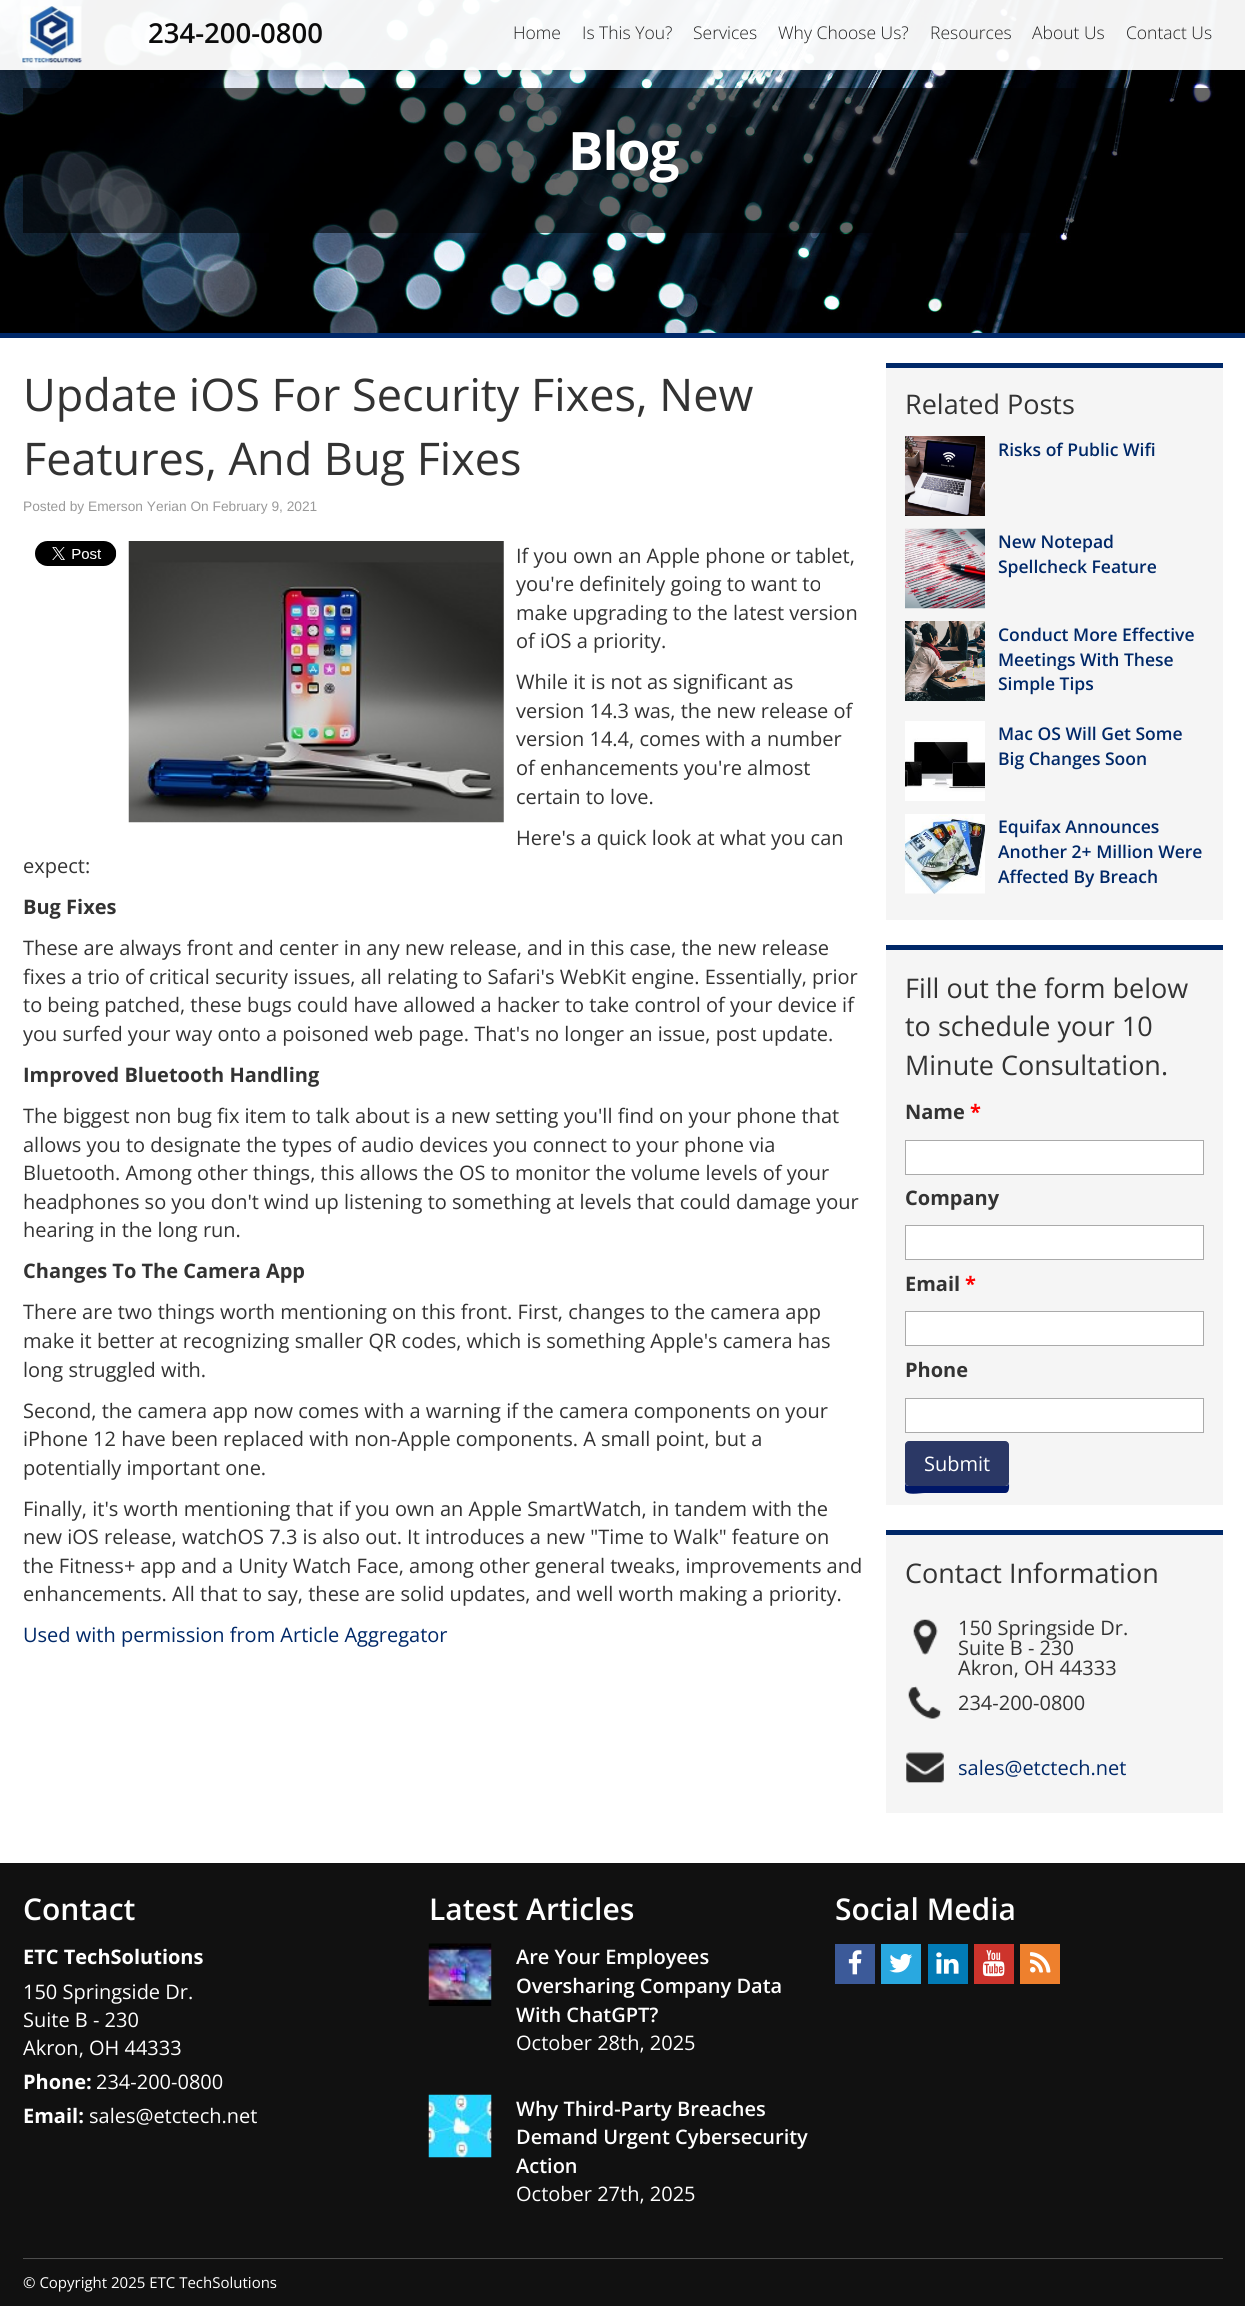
#include <cairo.h>
#include <math.h>
#include <stddef.h>

typedef struct { double x, y; const char *s; } line_t;

static void ink(cairo_t *ctx, unsigned color) {
    cairo_set_source_rgb(ctx, (color >> 16) / 255.0, (color >> 8 & 255) / 255.0, (color & 255) / 255.0);
}

static void write_spaced(cairo_t *ctx, double x, double y, const char *s, double letter, double word) {
    cairo_move_to(ctx, x, y);
    while (*s) {
        char ch[5] = {0};
        int n = 0;
        do ch[n++] = *s++; while ((*s & 0xC0) == 0x80);
        cairo_show_text(ctx, ch);
        cairo_rel_move_to(ctx, letter + word * (*ch == ' '), 0);
    }
}

static void round_path(cairo_t *ctx, double x, double y, double w, double h, double r) {
    cairo_new_sub_path(ctx);
    cairo_arc(ctx, x + w - r, y + h - r, r, 0, M_PI / 2);
    cairo_arc(ctx, x + r, y + h - r, r, M_PI / 2, M_PI);
    cairo_arc(ctx, x + r, y + r, r, M_PI, 1.5 * M_PI);
    cairo_arc(ctx, x + w - r, y + r, r, 1.5 * M_PI, 2 * M_PI);
    cairo_close_path(ctx);
}

static void blur_box(cairo_t *ctx, double x, double y, double w, double h, double r, double blur, double alpha) {
    cairo_push_group_with_content(ctx, CAIRO_CONTENT_ALPHA);
    cairo_set_operator(ctx, CAIRO_OPERATOR_SOURCE);
    for (int i = 15; i >= -15 && fmin(w, h) + blur * i / 3 > 0; i -= 2) {
        double e = blur * i / 6;
        cairo_set_source_rgba(ctx, 0, 0, 0, alpha * erfc((i - 1) / 8.5) / 2);
        round_path(ctx, x - e, y - e, w + 2 * e, h + 2 * e, fmax(0, fmin(r + e + blur * .6, fmin(w, h) / 2 + e)));
        cairo_fill(ctx);
    }
    cairo_pattern_t *soft = cairo_pop_group(ctx);
    cairo_mask(ctx, soft);
    cairo_pattern_destroy(soft);
}

static void paste(cairo_t *ctx, const char *path, double x, double y, double w, double h) {
    cairo_surface_t *image = cairo_image_surface_create_from_png(path);
    cairo_save(ctx);
    cairo_set_source_surface(ctx, image, x, y);
    cairo_rectangle(ctx, x, y, w, h);
    cairo_fill(ctx);
    cairo_restore(ctx);
    cairo_surface_destroy(image);
}

int main(void) {
    cairo_surface_t *surface = cairo_image_surface_create(CAIRO_FORMAT_RGB24, 1245, 2306);
    cairo_t *ctx = cairo_create(surface);
    cairo_font_options_t *options = cairo_font_options_create();
    cairo_font_options_set_hint_metrics(options, CAIRO_HINT_METRICS_OFF);
    cairo_font_options_set_hint_style(options, CAIRO_HINT_STYLE_NONE);
    cairo_set_font_options(ctx, options);
    cairo_set_miter_limit(ctx, 4);
    ink(ctx, 0xFFFFFF);
    cairo_paint(ctx);
    paste(ctx, "media/2.png", 0, 0, 1245, 333);
    cairo_save(ctx);
    cairo_rectangle(ctx, 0, 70, 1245, 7);
    cairo_clip(ctx);
    ink(ctx, 0x000000);
    blur_box(ctx, 0, 1, 1245, 70, 0, 4.5, 0.19);
    cairo_restore(ctx);
    cairo_set_source_rgba(ctx, 1, 1, 1, 0.95);
    cairo_rectangle(ctx, 0, 0, 1245, 70);
    cairo_fill(ctx);
    paste(ctx, "media/1.png", 22, 6, 60, 57);
    cairo_select_font_face(ctx, "Open Sans SemiBold", CAIRO_FONT_SLANT_NORMAL, CAIRO_FONT_WEIGHT_NORMAL);
    cairo_set_font_size(ctx, 27.5);
    ink(ctx, 0x0C0C0C);
    cairo_move_to(ctx, 148, 43);
    cairo_show_text(ctx, "234-200-0800");
    cairo_select_font_face(ctx, "Open Sans Light", CAIRO_FONT_SLANT_NORMAL, CAIRO_FONT_WEIGHT_NORMAL);
    cairo_set_font_size(ctx, 17.5);
    ink(ctx, 0x222222);
    {
        static const line_t items[] = {
            {513, 39, "Home"},
            {582, 39, "Is This You?"},
            {693, 39, "Services"},
            {778, 39, "Why Choose Us?"},
            {930, 39, "Resources"},
            {1032, 39, "About Us"},
            {1126, 39, "Contact Us"},
        };
        for (size_t i = 0; i < sizeof items / sizeof *items; i++) {
            cairo_move_to(ctx, items[i].x, items[i].y);
            cairo_show_text(ctx, items[i].s);
        }
    }
    ink(ctx, 0x002868);
    cairo_rectangle(ctx, 0, 333, 1245, 5);
    cairo_fill(ctx);
    cairo_set_source_rgba(ctx, 0, 0, 0, 0.6);
    cairo_rectangle(ctx, 23, 88, 1192, 145);
    cairo_fill(ctx);
    cairo_select_font_face(ctx, "Open Sans", CAIRO_FONT_SLANT_NORMAL, CAIRO_FONT_WEIGHT_BOLD);
    cairo_set_font_size(ctx, 53);
    ink(ctx, 0xFFFFFF);
    write_spaced(ctx, 568, 170, "Blog", -1, 0);
    cairo_select_font_face(ctx, "Open Sans", CAIRO_FONT_SLANT_NORMAL, CAIRO_FONT_WEIGHT_NORMAL);
    cairo_set_font_size(ctx, 45);
    ink(ctx, 0x333333);
    cairo_move_to(ctx, 23, 411);
    cairo_show_text(ctx, "Update iOS For Security Fixes, New");
    cairo_move_to(ctx, 23, 475);
    cairo_show_text(ctx, "Features, And Bug Fixes");
    cairo_select_font_face(ctx, "Liberation Sans", CAIRO_FONT_SLANT_NORMAL, CAIRO_FONT_WEIGHT_NORMAL);
    cairo_set_font_size(ctx, 13.75);
    ink(ctx, 0x999999);
    cairo_move_to(ctx, 23, 511);
    cairo_show_text(ctx, "Posted by Emerson Yerian On February 9, 2021");
    paste(ctx, "media/3.png", 35, 541, 82, 25);
    paste(ctx, "media/4.png", 128, 541, 376, 282);
    cairo_select_font_face(ctx, "Open Sans", CAIRO_FONT_SLANT_NORMAL, CAIRO_FONT_WEIGHT_NORMAL);
    cairo_set_font_size(ctx, 20);
    ink(ctx, 0x333333);
    {
        static const line_t items[] = {
            {516, 563, "If you own an Apple phone or tablet,"},
            {516, 591, "you're definitely going to want to"},
            {516, 620, "make upgrading to the latest version"},
            {516, 648, "of iOS a priority."},
            {516, 689, "While it is not as significant as"},
            {516, 718, "version 14.3 was, the new release of"},
            {516, 746, "version 14.4, comes with a number"},
            {516, 775, "of enhancements you're almost"},
            {516, 804, "certain to love."},
            {516, 845, "Here's a quick look at what you can"},
            {23, 873, "expect:"},
        };
        for (size_t i = 0; i < sizeof items / sizeof *items; i++) {
            cairo_move_to(ctx, items[i].x, items[i].y);
            cairo_show_text(ctx, items[i].s);
        }
    }
    cairo_select_font_face(ctx, "Open Sans", CAIRO_FONT_SLANT_NORMAL, CAIRO_FONT_WEIGHT_BOLD);
    cairo_move_to(ctx, 23, 914);
    cairo_show_text(ctx, "Bug Fixes");
    cairo_select_font_face(ctx, "Open Sans", CAIRO_FONT_SLANT_NORMAL, CAIRO_FONT_WEIGHT_NORMAL);
    {
        static const line_t items[] = {
            {23, 955, "These are always front and center in any new release, and in this case, the new release"},
            {23, 984, "fixes a trio of critical security issues, all relating to Safari's WebKit engine. Essentially, prior"},
            {23, 1012, "to being patched, these bugs could have allowed a hacker to take control of your device if"},
            {23, 1041, "you surfed your way onto a poisoned web page. That's no longer an issue, post update."},
        };
        for (size_t i = 0; i < sizeof items / sizeof *items; i++) {
            cairo_move_to(ctx, items[i].x, items[i].y);
            cairo_show_text(ctx, items[i].s);
        }
    }
    cairo_select_font_face(ctx, "Open Sans", CAIRO_FONT_SLANT_NORMAL, CAIRO_FONT_WEIGHT_BOLD);
    cairo_move_to(ctx, 23, 1082);
    cairo_show_text(ctx, "Improved Bluetooth Handling");
    cairo_select_font_face(ctx, "Open Sans", CAIRO_FONT_SLANT_NORMAL, CAIRO_FONT_WEIGHT_NORMAL);
    {
        static const line_t items[] = {
            {23, 1123, "The biggest non bug fix item to talk about is a new setting you'll find on your phone that"},
            {23, 1152, "allows you to designate the types of audio devices you connect to your phone via"},
            {23, 1180, "Bluetooth. Among other things, this allows the OS to monitor the volume levels of your"},
            {23, 1209, "headphones so you don't wind up listening to something at levels that could damage your"},
            {23, 1237, "hearing in the long run."},
        };
        for (size_t i = 0; i < sizeof items / sizeof *items; i++) {
            cairo_move_to(ctx, items[i].x, items[i].y);
            cairo_show_text(ctx, items[i].s);
        }
    }
    cairo_select_font_face(ctx, "Open Sans", CAIRO_FONT_SLANT_NORMAL, CAIRO_FONT_WEIGHT_BOLD);
    cairo_move_to(ctx, 23, 1278);
    cairo_show_text(ctx, "Changes To The Camera App");
    cairo_select_font_face(ctx, "Open Sans", CAIRO_FONT_SLANT_NORMAL, CAIRO_FONT_WEIGHT_NORMAL);
    {
        static const line_t items[] = {
            {23, 1319, "There are two things worth mentioning on this front. First, changes to the camera app"},
            {23, 1348, "make it better at recognizing smaller QR codes, which is something Apple's camera has"},
            {23, 1377, "long struggled with."},
            {23, 1418, "Second, the camera app now comes with a warning if the camera components on your"},
            {23, 1446, "iPhone 12 have been replaced with non-Apple components. A small point, but a"},
            {23, 1475, "potentially important one."},
            {23, 1516, "Finally, it's worth mentioning that if you own an Apple SmartWatch, in tandem with the"},
            {23, 1544, "new iOS release, watchOS 7.3 is also out. It introduces a new \"Time to Walk\" feature on"},
            {23, 1573, "the Fitness+ app and a Unity Watch Face, among other general tweaks, improvements and"},
            {23, 1601, "enhancements. All that to say, these are solid updates, and well worth making a priority."},
        };
        for (size_t i = 0; i < sizeof items / sizeof *items; i++) {
            cairo_move_to(ctx, items[i].x, items[i].y);
            cairo_show_text(ctx, items[i].s);
        }
    }
    ink(ctx, 0x002868);
    cairo_move_to(ctx, 23, 1642);
    cairo_show_text(ctx, "Used with permission from Article Aggregator");
    ink(ctx, 0xF5F5F5);
    cairo_rectangle(ctx, 886, 368, 337, 552);
    cairo_fill(ctx);
    ink(ctx, 0x002868);
    cairo_rectangle(ctx, 886, 363, 337, 5);
    cairo_fill(ctx);
    cairo_set_font_size(ctx, 27);
    ink(ctx, 0x333333);
    cairo_move_to(ctx, 905, 414);
    cairo_show_text(ctx, "Related Posts");
    paste(ctx, "media/5.png", 905, 436, 80, 80);
    cairo_select_font_face(ctx, "Open Sans SemiBold", CAIRO_FONT_SLANT_NORMAL, CAIRO_FONT_WEIGHT_NORMAL);
    cairo_set_font_size(ctx, 17.5);
    ink(ctx, 0x002868);
    cairo_move_to(ctx, 998, 456);
    cairo_show_text(ctx, "Risks of Public Wifi");
    paste(ctx, "media/6.png", 905, 528, 80, 81);
    cairo_move_to(ctx, 998, 548);
    cairo_show_text(ctx, "New Notepad");
    cairo_move_to(ctx, 998, 573);
    cairo_show_text(ctx, "Spellcheck Feature");
    paste(ctx, "media/7.png", 905, 621, 80, 80);
    {
        static const line_t items[] = {
            {998, 641, "Conduct More Effective"},
            {998, 666, "Meetings With These"},
            {998, 690, "Simple Tips"},
        };
        for (size_t i = 0; i < sizeof items / sizeof *items; i++) {
            cairo_move_to(ctx, items[i].x, items[i].y);
            cairo_show_text(ctx, items[i].s);
        }
    }
    paste(ctx, "media/8.png", 905, 721, 80, 80);
    cairo_move_to(ctx, 998, 740);
    cairo_show_text(ctx, "Mac OS Will Get Some");
    cairo_move_to(ctx, 998, 765);
    cairo_show_text(ctx, "Big Changes Soon");
    paste(ctx, "media/9.png", 905, 814, 80, 80);
    {
        static const line_t items[] = {
            {998, 833, "Equifax Announces"},
            {998, 858, "Another 2+ Million Were"},
            {998, 883, "Affected By Breach"},
        };
        for (size_t i = 0; i < sizeof items / sizeof *items; i++) {
            cairo_move_to(ctx, items[i].x, items[i].y);
            cairo_show_text(ctx, items[i].s);
        }
    }
    ink(ctx, 0xF5F5F5);
    cairo_rectangle(ctx, 886, 950, 337, 555);
    cairo_fill(ctx);
    ink(ctx, 0x002868);
    cairo_rectangle(ctx, 886, 945, 337, 5);
    cairo_fill(ctx);
    cairo_select_font_face(ctx, "Open Sans", CAIRO_FONT_SLANT_NORMAL, CAIRO_FONT_WEIGHT_NORMAL);
    cairo_set_font_size(ctx, 27);
    ink(ctx, 0x333333);
    {
        static const line_t items[] = {
            {905, 998, "Fill out the form below"},
            {905, 1036, "to schedule your 10"},
            {905, 1075, "Minute Consultation."},
        };
        for (size_t i = 0; i < sizeof items / sizeof *items; i++) {
            cairo_move_to(ctx, items[i].x, items[i].y);
            cairo_show_text(ctx, items[i].s);
        }
    }
    cairo_select_font_face(ctx, "Open Sans", CAIRO_FONT_SLANT_NORMAL, CAIRO_FONT_WEIGHT_BOLD);
    cairo_set_font_size(ctx, 20);
    cairo_move_to(ctx, 905, 1119);
    cairo_show_text(ctx, "Name");
    ink(ctx, 0xFF0000);
    cairo_move_to(ctx, 970, 1119);
    cairo_show_text(ctx, "*");
    ink(ctx, 0xFFFFFF);
    cairo_rectangle(ctx, 905.5, 1140.5, 298, 34);
    cairo_fill_preserve(ctx);
    ink(ctx, 0xAAAAAA);
    cairo_set_line_width(ctx, 1);
    cairo_stroke(ctx);
    ink(ctx, 0x333333);
    cairo_move_to(ctx, 905, 1205);
    cairo_show_text(ctx, "Company");
    ink(ctx, 0xFFFFFF);
    cairo_rectangle(ctx, 905.5, 1225.5, 298, 34);
    cairo_fill_preserve(ctx);
    ink(ctx, 0xAAAAAA);
    cairo_stroke(ctx);
    ink(ctx, 0x333333);
    cairo_move_to(ctx, 905, 1291);
    cairo_show_text(ctx, "Email");
    ink(ctx, 0xFF0000);
    cairo_move_to(ctx, 965, 1291);
    cairo_show_text(ctx, "*");
    ink(ctx, 0xFFFFFF);
    cairo_rectangle(ctx, 905.5, 1311.5, 298, 34);
    cairo_fill_preserve(ctx);
    ink(ctx, 0xAAAAAA);
    cairo_stroke(ctx);
    ink(ctx, 0x333333);
    cairo_move_to(ctx, 905, 1377);
    cairo_show_text(ctx, "Phone");
    ink(ctx, 0xFFFFFF);
    cairo_rectangle(ctx, 905.5, 1398.5, 298, 34);
    cairo_fill_preserve(ctx);
    ink(ctx, 0xAAAAAA);
    cairo_stroke(ctx);
    ink(ctx, 0x001768);
    cairo_new_path(ctx);
    cairo_move_to(ctx, 905, 1482);
    cairo_line_to(ctx, 905, 1490);
    cairo_curve_to(ctx, 906, 1496, 919, 1493, 925, 1493);
    cairo_line_to(ctx, 1005, 1493);
    cairo_curve_to(ctx, 1010, 1493, 1009, 1486, 1009, 1483);
    cairo_line_to(ctx, 1009, 1451);
    cairo_line_to(ctx, 1009, 1482);
    cairo_curve_to(ctx, 1009, 1485, 1007, 1486, 1005, 1486);
    cairo_line_to(ctx, 909, 1486);
    cairo_curve_to(ctx, 907, 1486, 905, 1485, 905, 1482);
    cairo_close_path(ctx);
    cairo_fill(ctx);
    ink(ctx, 0x2B3865);
    round_path(ctx, 905.5, 1441.5, 103, 44, 3.5);
    cairo_fill_preserve(ctx);
    cairo_stroke(ctx);
    cairo_select_font_face(ctx, "Open Sans", CAIRO_FONT_SLANT_NORMAL, CAIRO_FONT_WEIGHT_NORMAL);
    ink(ctx, 0xFFFFFF);
    cairo_move_to(ctx, 924, 1471);
    cairo_show_text(ctx, "Submit");
    ink(ctx, 0xF5F5F5);
    cairo_rectangle(ctx, 886, 1535, 337, 278);
    cairo_fill(ctx);
    ink(ctx, 0x002868);
    cairo_rectangle(ctx, 886, 1530, 337, 5);
    cairo_fill(ctx);
    cairo_set_font_size(ctx, 27);
    ink(ctx, 0x333333);
    cairo_move_to(ctx, 905, 1583);
    cairo_show_text(ctx, "Contact Information");
    paste(ctx, "media/10.png", 913, 1619, 25, 36);
    cairo_set_font_size(ctx, 20);
    {
        static const line_t items[] = {
            {958, 1635, "150 Springside Dr."},
            {958, 1655, "Suite B - 230"},
            {958, 1675, "Akron, OH 44333"},
        };
        for (size_t i = 0; i < sizeof items / sizeof *items; i++) {
            cairo_move_to(ctx, items[i].x, items[i].y);
            cairo_show_text(ctx, items[i].s);
        }
    }
    paste(ctx, "media/11.png", 908, 1686, 34, 33);
    cairo_move_to(ctx, 958, 1710);
    cairo_show_text(ctx, "234-200-0800");
    paste(ctx, "media/12.png", 906, 1752, 38, 31);
    ink(ctx, 0x002868);
    cairo_move_to(ctx, 958, 1775);
    cairo_show_text(ctx, "sales@etctech.net");
    ink(ctx, 0x111111);
    cairo_rectangle(ctx, 0, 1863, 1245, 443);
    cairo_fill(ctx);
    cairo_select_font_face(ctx, "Open Sans SemiBold", CAIRO_FONT_SLANT_NORMAL, CAIRO_FONT_WEIGHT_NORMAL);
    cairo_set_font_size(ctx, 30);
    ink(ctx, 0xFFFFFF);
    cairo_move_to(ctx, 23, 1920);
    cairo_show_text(ctx, "Contact");
    cairo_select_font_face(ctx, "Open Sans", CAIRO_FONT_SLANT_NORMAL, CAIRO_FONT_WEIGHT_BOLD);
    cairo_set_font_size(ctx, 20);
    cairo_move_to(ctx, 23, 1964);
    cairo_show_text(ctx, "ETC TechSolutions");
    cairo_select_font_face(ctx, "Open Sans", CAIRO_FONT_SLANT_NORMAL, CAIRO_FONT_WEIGHT_NORMAL);
    {
        static const line_t items[] = {
            {23, 1999, "150 Springside Dr."},
            {23, 2027, "Suite B - 230"},
            {23, 2055, "Akron, OH 44333"},
        };
        for (size_t i = 0; i < sizeof items / sizeof *items; i++) {
            cairo_move_to(ctx, items[i].x, items[i].y);
            cairo_show_text(ctx, items[i].s);
        }
    }
    cairo_select_font_face(ctx, "Open Sans", CAIRO_FONT_SLANT_NORMAL, CAIRO_FONT_WEIGHT_BOLD);
    cairo_move_to(ctx, 23, 2089);
    cairo_show_text(ctx, "Phone:");
    cairo_select_font_face(ctx, "Open Sans", CAIRO_FONT_SLANT_NORMAL, CAIRO_FONT_WEIGHT_NORMAL);
    cairo_move_to(ctx, 96, 2089);
    cairo_show_text(ctx, "234-200-0800");
    cairo_select_font_face(ctx, "Open Sans", CAIRO_FONT_SLANT_NORMAL, CAIRO_FONT_WEIGHT_BOLD);
    cairo_move_to(ctx, 23, 2123);
    cairo_show_text(ctx, "Email:");
    cairo_select_font_face(ctx, "Open Sans", CAIRO_FONT_SLANT_NORMAL, CAIRO_FONT_WEIGHT_NORMAL);
    cairo_move_to(ctx, 89, 2123);
    cairo_show_text(ctx, "sales@etctech.net");
    cairo_select_font_face(ctx, "Open Sans SemiBold", CAIRO_FONT_SLANT_NORMAL, CAIRO_FONT_WEIGHT_NORMAL);
    cairo_set_font_size(ctx, 30);
    cairo_move_to(ctx, 429, 1920);
    cairo_show_text(ctx, "Latest Articles");
    paste(ctx, "media/13.png", 428, 1943, 64, 63);
    cairo_set_font_size(ctx, 20);
    {
        static const line_t items[] = {
            {516, 1964, "Are Your Employees"},
            {516, 1993, "Oversharing Company Data"},
            {516, 2022, "With ChatGPT?"},
        };
        for (size_t i = 0; i < sizeof items / sizeof *items; i++) {
            cairo_move_to(ctx, items[i].x, items[i].y);
            cairo_show_text(ctx, items[i].s);
        }
    }
    cairo_select_font_face(ctx, "Open Sans", CAIRO_FONT_SLANT_NORMAL, CAIRO_FONT_WEIGHT_NORMAL);
    cairo_move_to(ctx, 516, 2050);
    cairo_show_text(ctx, "October 28th, 2025");
    paste(ctx, "media/14.png", 428, 2094, 64, 64);
    cairo_select_font_face(ctx, "Open Sans SemiBold", CAIRO_FONT_SLANT_NORMAL, CAIRO_FONT_WEIGHT_NORMAL);
    {
        static const line_t items[] = {
            {516, 2116, "Why Third-Party Breaches"},
            {516, 2144, "Demand Urgent Cybersecurity"},
            {516, 2173, "Action"},
        };
        for (size_t i = 0; i < sizeof items / sizeof *items; i++) {
            cairo_move_to(ctx, items[i].x, items[i].y);
            cairo_show_text(ctx, items[i].s);
        }
    }
    cairo_select_font_face(ctx, "Open Sans", CAIRO_FONT_SLANT_NORMAL, CAIRO_FONT_WEIGHT_NORMAL);
    cairo_move_to(ctx, 516, 2201);
    cairo_show_text(ctx, "October 27th, 2025");
    cairo_select_font_face(ctx, "Open Sans SemiBold", CAIRO_FONT_SLANT_NORMAL, CAIRO_FONT_WEIGHT_NORMAL);
    cairo_set_font_size(ctx, 30);
    cairo_move_to(ctx, 835, 1920);
    cairo_show_text(ctx, "Social Media");
    ink(ctx, 0x3C5A99);
    cairo_rectangle(ctx, 835, 1944, 40, 40);
    cairo_fill(ctx);
    paste(ctx, "media/15.png", 848, 1950, 14, 25);
    ink(ctx, 0x29A8E0);
    cairo_rectangle(ctx, 881, 1944, 40, 40);
    cairo_fill(ctx);
    paste(ctx, "media/16.png", 889, 1953, 24, 20);
    ink(ctx, 0x027BB6);
    cairo_rectangle(ctx, 928, 1944, 40, 40);
    cairo_fill(ctx);
    paste(ctx, "media/17.png", 936, 1952, 23, 22);
    ink(ctx, 0xCD342C);
    cairo_rectangle(ctx, 974, 1944, 40, 40);
    cairo_fill(ctx);
    paste(ctx, "media/18.png", 982, 1950, 23, 27);
    ink(ctx, 0xEE802D);
    cairo_rectangle(ctx, 1020, 1944, 40, 40);
    cairo_fill(ctx);
    paste(ctx, "media/19.png", 1030, 1952, 21, 21);
    ink(ctx, 0x4D4D4D);
    cairo_rectangle(ctx, 23, 2258, 1200, 1);
    cairo_fill(ctx);
    cairo_select_font_face(ctx, "Open Sans", CAIRO_FONT_SLANT_NORMAL, CAIRO_FONT_WEIGHT_NORMAL);
    cairo_set_font_size(ctx, 15);
    ink(ctx, 0xFFFFFF);
    cairo_move_to(ctx, 23, 2288);
    cairo_show_text(ctx, "© Copyright 2025 ETC TechSolutions");
    cairo_surface_write_to_png(surface, "image.png");
    cairo_font_options_destroy(options);
    cairo_destroy(ctx);
    cairo_surface_destroy(surface);
    return 0;
}
